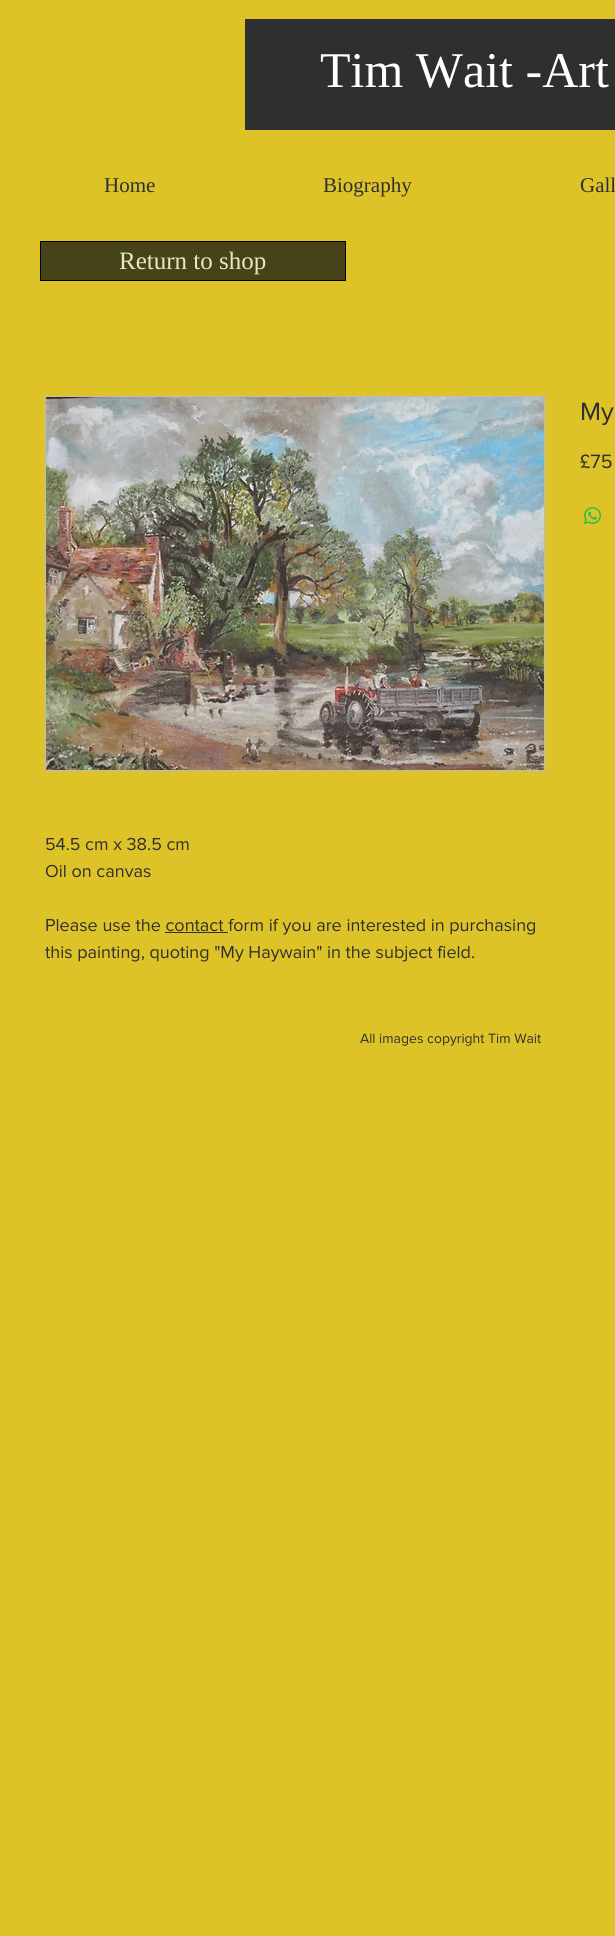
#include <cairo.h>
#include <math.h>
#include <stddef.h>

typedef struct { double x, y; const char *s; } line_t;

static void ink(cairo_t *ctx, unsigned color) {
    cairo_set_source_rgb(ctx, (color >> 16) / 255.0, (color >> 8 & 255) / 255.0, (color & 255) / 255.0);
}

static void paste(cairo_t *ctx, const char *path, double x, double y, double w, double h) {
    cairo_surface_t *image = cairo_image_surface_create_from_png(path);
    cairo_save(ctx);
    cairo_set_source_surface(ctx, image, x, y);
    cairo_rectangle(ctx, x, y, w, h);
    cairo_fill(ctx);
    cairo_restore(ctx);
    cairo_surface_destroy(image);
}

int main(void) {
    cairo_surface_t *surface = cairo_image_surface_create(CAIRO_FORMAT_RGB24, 615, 1936);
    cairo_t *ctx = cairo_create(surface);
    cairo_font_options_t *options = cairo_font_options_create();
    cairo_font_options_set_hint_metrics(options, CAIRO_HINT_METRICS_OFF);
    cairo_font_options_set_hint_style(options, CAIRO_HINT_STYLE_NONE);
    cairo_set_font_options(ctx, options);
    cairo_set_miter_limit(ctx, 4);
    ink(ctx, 0xDEC328);
    cairo_paint(ctx);
    ink(ctx, 0x2F2F30);
    cairo_rectangle(ctx, 245, 19, 370, 111);
    cairo_fill(ctx);
    cairo_select_font_face(ctx, "Liberation Serif", CAIRO_FONT_SLANT_NORMAL, CAIRO_FONT_WEIGHT_NORMAL);
    cairo_set_font_size(ctx, 50);
    ink(ctx, 0xFFFFFF);
    cairo_move_to(ctx, 320, 87);
    cairo_show_text(ctx, "Tim Wait -Art");
    cairo_set_font_size(ctx, 21);
    ink(ctx, 0x2F2F30);
    {
        static const line_t items[] = {
            {104, 192, "Home"},
            {323, 192, "Biography"},
            {580, 192, "Gall"},
        };
        for (size_t i = 0; i < sizeof items / sizeof *items; i++) {
            cairo_move_to(ctx, items[i].x, items[i].y);
            cairo_show_text(ctx, items[i].s);
        }
    }
    ink(ctx, 0x464318);
    cairo_rectangle(ctx, 40.5, 241.5, 305, 39);
    cairo_fill_preserve(ctx);
    ink(ctx, 0x000000);
    cairo_set_line_width(ctx, 1);
    cairo_stroke(ctx);
    cairo_set_font_size(ctx, 25);
    ink(ctx, 0xE8E6C4);
    cairo_move_to(ctx, 119, 269);
    cairo_show_text(ctx, "Return to shop");
    cairo_select_font_face(ctx, "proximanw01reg", CAIRO_FONT_SLANT_NORMAL, CAIRO_FONT_WEIGHT_NORMAL);
    cairo_set_font_size(ctx, 26);
    ink(ctx, 0x2F2F30);
    cairo_move_to(ctx, 580, 420);
    cairo_show_text(ctx, "My");
    cairo_set_font_size(ctx, 20);
    cairo_move_to(ctx, 580, 468);
    cairo_show_text(ctx, "£75");
    paste(ctx, "media/1.png", 584, 507, 17, 17);
    cairo_rectangle(ctx, 45.5, 396.5, 499, 374);
    ink(ctx, 0xBEBCC2);
    cairo_stroke(ctx);
    paste(ctx, "media/2.png", 46, 397, 498, 373);
    cairo_set_font_size(ctx, 18);
    ink(ctx, 0x2F2F30);
    {
        static const line_t items[] = {
            {45, 850, "54.5 cm x 38.5 cm"},
            {45, 877, "Oil on canvas"},
            {45, 931, "Please use the contact form if you are interested in purchasing"},
        };
        for (size_t i = 0; i < sizeof items / sizeof *items; i++) {
            cairo_move_to(ctx, items[i].x, items[i].y);
            cairo_show_text(ctx, items[i].s);
        }
    }
    cairo_rectangle(ctx, 165, 932, 63, 1);
    cairo_fill(ctx);
    cairo_move_to(ctx, 45, 958);
    cairo_show_text(ctx, "this painting, quoting \"My Haywain\" in the subject field.");
    cairo_set_font_size(ctx, 14);
    cairo_move_to(ctx, 360, 1043);
    cairo_show_text(ctx, "All images copyright Tim Wait");
    cairo_surface_write_to_png(surface, "image.png");
    cairo_font_options_destroy(options);
    cairo_destroy(ctx);
    cairo_surface_destroy(surface);
    return 0;
}
